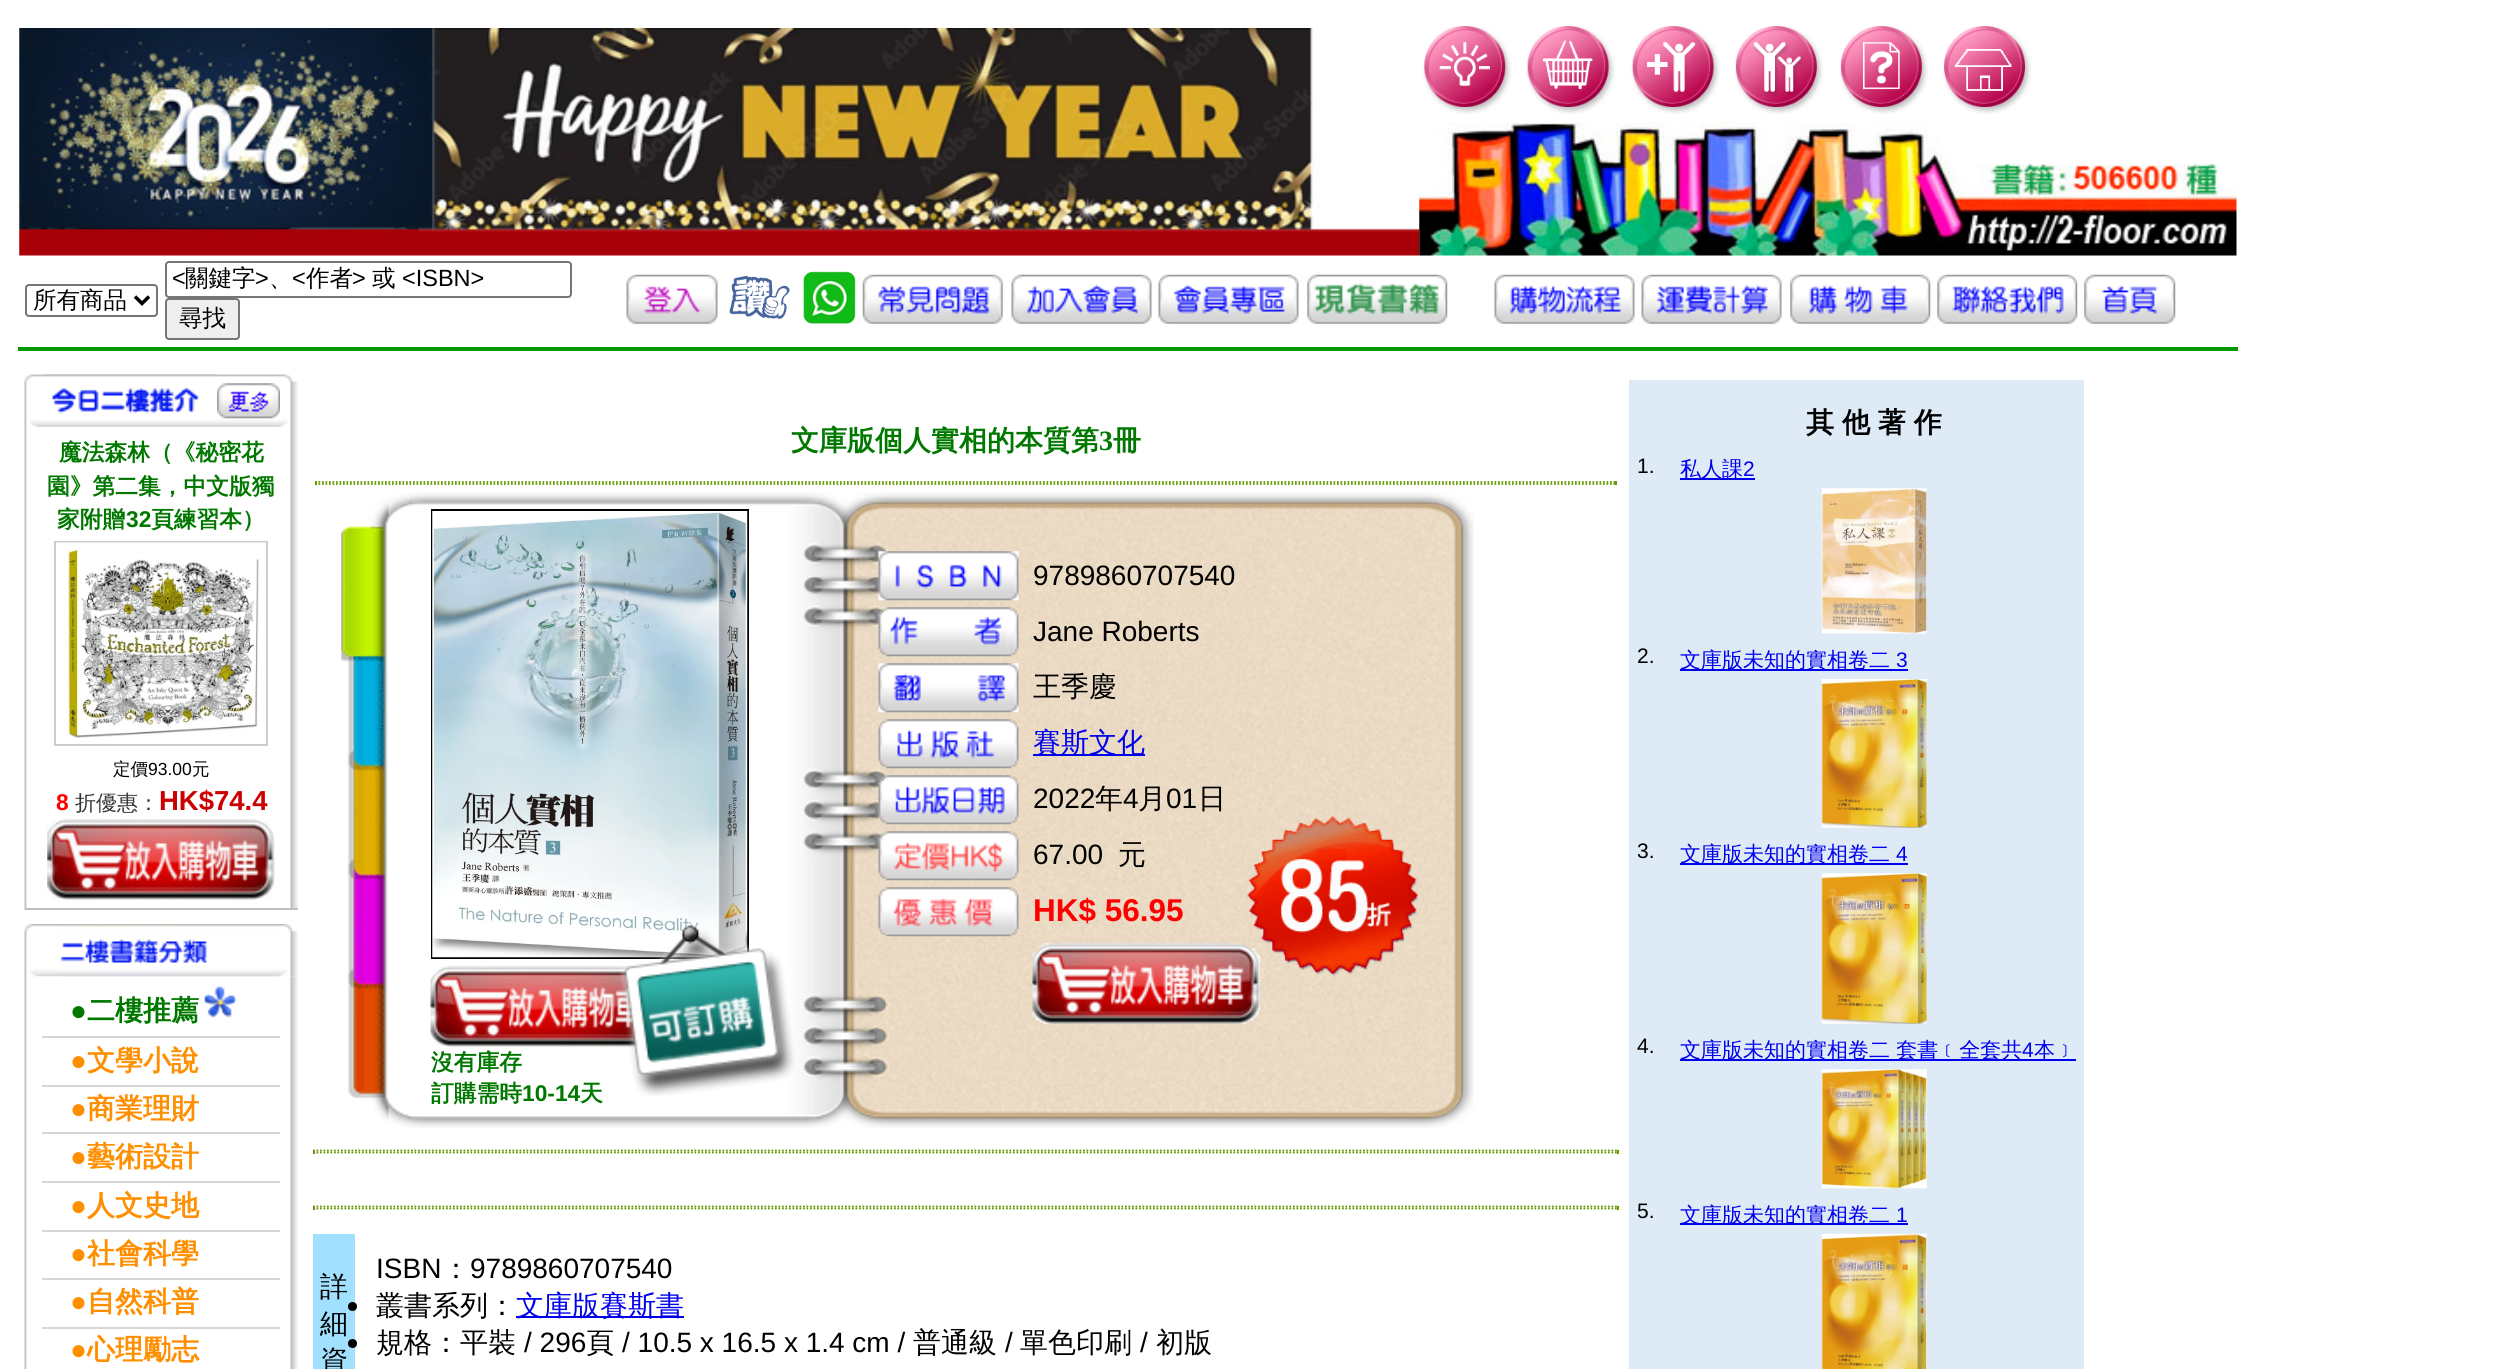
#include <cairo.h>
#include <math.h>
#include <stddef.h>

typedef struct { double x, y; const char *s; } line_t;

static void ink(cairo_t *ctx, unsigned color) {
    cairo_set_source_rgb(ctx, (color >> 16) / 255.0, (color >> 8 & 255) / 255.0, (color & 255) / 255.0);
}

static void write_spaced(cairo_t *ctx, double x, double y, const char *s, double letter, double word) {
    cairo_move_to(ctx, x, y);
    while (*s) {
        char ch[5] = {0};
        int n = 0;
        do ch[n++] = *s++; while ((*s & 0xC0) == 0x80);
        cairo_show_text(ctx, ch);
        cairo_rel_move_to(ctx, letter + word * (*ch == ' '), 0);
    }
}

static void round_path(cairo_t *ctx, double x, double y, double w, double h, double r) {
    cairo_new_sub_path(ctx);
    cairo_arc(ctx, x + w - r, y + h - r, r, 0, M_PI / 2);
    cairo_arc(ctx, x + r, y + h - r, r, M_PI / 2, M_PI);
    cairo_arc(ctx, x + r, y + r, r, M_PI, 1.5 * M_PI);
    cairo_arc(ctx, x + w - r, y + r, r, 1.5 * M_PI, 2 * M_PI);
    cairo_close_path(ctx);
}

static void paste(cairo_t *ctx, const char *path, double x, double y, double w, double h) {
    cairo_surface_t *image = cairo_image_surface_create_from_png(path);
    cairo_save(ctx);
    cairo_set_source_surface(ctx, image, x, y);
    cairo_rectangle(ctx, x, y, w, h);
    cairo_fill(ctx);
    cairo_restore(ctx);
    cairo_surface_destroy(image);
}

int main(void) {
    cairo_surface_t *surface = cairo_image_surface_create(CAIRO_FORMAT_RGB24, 2495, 1369);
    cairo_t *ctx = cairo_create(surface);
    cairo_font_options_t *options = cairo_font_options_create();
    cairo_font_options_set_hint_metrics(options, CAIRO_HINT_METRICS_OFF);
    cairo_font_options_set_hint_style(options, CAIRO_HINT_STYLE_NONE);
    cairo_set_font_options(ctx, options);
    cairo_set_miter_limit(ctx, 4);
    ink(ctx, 0xFFFFFF);
    cairo_paint(ctx);
    paste(ctx, "media/1.png", 341, 492, 1133, 636);
    ink(ctx, 0x009900);
    cairo_rectangle(ctx, 18, 347, 2220, 4);
    cairo_fill(ctx);
    paste(ctx, "media/2.png", 19, 28, 1401, 228);
    paste(ctx, "media/3.png", 1423, 26, 89, 88);
    paste(ctx, "media/4.png", 1526, 26, 89, 88);
    paste(ctx, "media/5.png", 1631, 26, 89, 88);
    paste(ctx, "media/6.png", 1735, 26, 88, 88);
    paste(ctx, "media/7.png", 1840, 26, 88, 88);
    paste(ctx, "media/8.png", 1943, 26, 88, 88);
    paste(ctx, "media/9.png", 1419, 122, 818, 134);
    round_path(ctx, 26, 285, 131, 31, 3);
    ink(ctx, 0x767676);
    cairo_stroke(ctx);
    cairo_new_path(ctx);
    cairo_move_to(ctx, 135, 296.5);
    cairo_line_to(ctx, 142, 303.5);
    cairo_line_to(ctx, 149, 296.5);
    ink(ctx, 0x000000);
    cairo_set_line_width(ctx, 3.5);
    cairo_stroke(ctx);
    cairo_select_font_face(ctx, "WenQuanYi Zen Hei Medium", CAIRO_FONT_SLANT_NORMAL, CAIRO_FONT_WEIGHT_NORMAL);
    cairo_set_font_size(ctx, 23.5);
    cairo_move_to(ctx, 33, 308);
    cairo_show_text(ctx, "所有商品");
    round_path(ctx, 166, 262, 405, 35, 3);
    ink(ctx, 0x767676);
    cairo_set_line_width(ctx, 2);
    cairo_stroke(ctx);
    cairo_select_font_face(ctx, "Liberation Sans", CAIRO_FONT_SLANT_NORMAL, CAIRO_FONT_WEIGHT_NORMAL);
    ink(ctx, 0x000000);
    cairo_move_to(ctx, 172, 286);
    cairo_show_text(ctx, "<");
    cairo_select_font_face(ctx, "WenQuanYi Zen Hei Medium", CAIRO_FONT_SLANT_NORMAL, CAIRO_FONT_WEIGHT_NORMAL);
    cairo_move_to(ctx, 185, 286);
    cairo_show_text(ctx, "關鍵字");
    cairo_select_font_face(ctx, "Liberation Sans", CAIRO_FONT_SLANT_NORMAL, CAIRO_FONT_WEIGHT_NORMAL);
    cairo_move_to(ctx, 255, 286);
    cairo_show_text(ctx, ">");
    cairo_move_to(ctx, 292, 286);
    cairo_show_text(ctx, "<");
    cairo_select_font_face(ctx, "WenQuanYi Zen Hei Medium", CAIRO_FONT_SLANT_NORMAL, CAIRO_FONT_WEIGHT_NORMAL);
    cairo_move_to(ctx, 306, 286);
    cairo_show_text(ctx, "作者");
    cairo_select_font_face(ctx, "Liberation Sans", CAIRO_FONT_SLANT_NORMAL, CAIRO_FONT_WEIGHT_NORMAL);
    cairo_move_to(ctx, 352, 286);
    cairo_show_text(ctx, ">");
    cairo_select_font_face(ctx, "WenQuanYi Zen Hei Medium", CAIRO_FONT_SLANT_NORMAL, CAIRO_FONT_WEIGHT_NORMAL);
    cairo_move_to(ctx, 372, 286);
    cairo_show_text(ctx, "或");
    cairo_select_font_face(ctx, "Liberation Sans", CAIRO_FONT_SLANT_NORMAL, CAIRO_FONT_WEIGHT_NORMAL);
    cairo_move_to(ctx, 402, 286);
    cairo_show_text(ctx, "<ISBN>");
    cairo_select_font_face(ctx, "WenQuanYi Zen Hei Medium", CAIRO_FONT_SLANT_NORMAL, CAIRO_FONT_WEIGHT_NORMAL);
    cairo_move_to(ctx, 269, 286);
    cairo_show_text(ctx, "、");
    ink(ctx, 0xEFEFEF);
    round_path(ctx, 166, 299, 73, 40, 3);
    cairo_fill_preserve(ctx);
    ink(ctx, 0x767676);
    cairo_stroke(ctx);
    ink(ctx, 0x000000);
    cairo_move_to(ctx, 179, 326);
    cairo_show_text(ctx, "尋找");
    paste(ctx, "media/10.png", 626, 274, 92, 50);
    paste(ctx, "media/11.png", 729, 275, 61, 44);
    paste(ctx, "media/12.png", 803, 271, 53, 53);
    paste(ctx, "media/13.png", 862, 274, 141, 50);
    paste(ctx, "media/14.png", 1011, 274, 141, 50);
    paste(ctx, "media/15.png", 1158, 274, 141, 50);
    paste(ctx, "media/16.png", 1307, 274, 141, 50);
    paste(ctx, "media/17.png", 1494, 274, 141, 50);
    paste(ctx, "media/18.png", 1641, 274, 141, 50);
    paste(ctx, "media/19.png", 1790, 274, 141, 50);
    paste(ctx, "media/20.png", 1937, 274, 141, 50);
    paste(ctx, "media/21.png", 2084, 274, 92, 50);
    paste(ctx, "media/22.png", 24, 374, 274, 53);
    paste(ctx, "media/23.png", 44, 374, 173, 40);
    paste(ctx, "media/24.png", 217, 383, 63, 36);
    paste(ctx, "media/25.png", 24, 427, 274, 483);
    ink(ctx, 0xBEBEBE);
    cairo_rectangle(ctx, 25, 908, 273, 2);
    cairo_fill(ctx);
    cairo_select_font_face(ctx, "WenQuanYi Zen Hei", CAIRO_FONT_SLANT_NORMAL, CAIRO_FONT_WEIGHT_BOLD);
    cairo_set_font_size(ctx, 22.75);
    ink(ctx, 0x007800);
    {
        static const line_t items[] = {
            {59, 460, "魔法森林（《秘密花"},
            {47, 494, "園》第二集，中文版獨"},
            {57, 527, "家附贈"},
        };
        for (size_t i = 0; i < sizeof items / sizeof *items; i++) {
            cairo_move_to(ctx, items[i].x, items[i].y);
            cairo_show_text(ctx, items[i].s);
        }
    }
    cairo_select_font_face(ctx, "Liberation Sans", CAIRO_FONT_SLANT_NORMAL, CAIRO_FONT_WEIGHT_BOLD);
    cairo_move_to(ctx, 126, 527);
    cairo_show_text(ctx, "32");
    cairo_select_font_face(ctx, "WenQuanYi Zen Hei", CAIRO_FONT_SLANT_NORMAL, CAIRO_FONT_WEIGHT_BOLD);
    cairo_move_to(ctx, 151, 527);
    cairo_show_text(ctx, "頁練習本）");
    cairo_rectangle(ctx, 55, 542, 212, 203);
    ink(ctx, 0xCCCCCC);
    cairo_stroke(ctx);
    paste(ctx, "media/26.png", 56, 542, 210, 196);
    cairo_select_font_face(ctx, "WenQuanYi Zen Hei Medium", CAIRO_FONT_SLANT_NORMAL, CAIRO_FONT_WEIGHT_NORMAL);
    cairo_set_font_size(ctx, 17.5);
    ink(ctx, 0x000000);
    cairo_move_to(ctx, 113, 775);
    cairo_show_text(ctx, "定價");
    cairo_select_font_face(ctx, "Liberation Sans", CAIRO_FONT_SLANT_NORMAL, CAIRO_FONT_WEIGHT_NORMAL);
    cairo_move_to(ctx, 148, 775);
    cairo_show_text(ctx, "93.00");
    cairo_select_font_face(ctx, "WenQuanYi Zen Hei Medium", CAIRO_FONT_SLANT_NORMAL, CAIRO_FONT_WEIGHT_NORMAL);
    cairo_move_to(ctx, 192, 775);
    cairo_show_text(ctx, "元");
    cairo_select_font_face(ctx, "Liberation Sans", CAIRO_FONT_SLANT_NORMAL, CAIRO_FONT_WEIGHT_BOLD);
    cairo_set_font_size(ctx, 22.75);
    ink(ctx, 0xFF0000);
    cairo_move_to(ctx, 56, 810);
    cairo_show_text(ctx, "8");
    cairo_select_font_face(ctx, "WenQuanYi Zen Hei Medium", CAIRO_FONT_SLANT_NORMAL, CAIRO_FONT_WEIGHT_NORMAL);
    cairo_set_font_size(ctx, 21);
    ink(ctx, 0x333333);
    cairo_move_to(ctx, 75, 810);
    cairo_show_text(ctx, "折優惠：");
    cairo_select_font_face(ctx, "Liberation Sans", CAIRO_FONT_SLANT_NORMAL, CAIRO_FONT_WEIGHT_BOLD);
    cairo_set_font_size(ctx, 27.5);
    ink(ctx, 0xCC0000);
    cairo_move_to(ctx, 159, 810);
    cairo_show_text(ctx, "HK$74.4");
    paste(ctx, "media/27.png", 47, 819, 228, 81);
    paste(ctx, "media/28.png", 24, 924, 274, 53);
    paste(ctx, "media/29.png", 61, 924, 219, 53);
    paste(ctx, "media/30.png", 24, 976, 274, 393);
    ink(ctx, 0xD7D7D7);
    cairo_rectangle(ctx, 42, 1036, 238, 2);
    cairo_fill(ctx);
    cairo_set_font_size(ctx, 28);
    ink(ctx, 0x007800);
    cairo_move_to(ctx, 70, 1020);
    cairo_show_text(ctx, "●");
    cairo_select_font_face(ctx, "WenQuanYi Zen Hei", CAIRO_FONT_SLANT_NORMAL, CAIRO_FONT_WEIGHT_BOLD);
    cairo_move_to(ctx, 87, 1020);
    cairo_show_text(ctx, "二樓推薦");
    paste(ctx, "media/31.png", 204, 986, 33, 32);
    ink(ctx, 0xD7D7D7);
    cairo_rectangle(ctx, 42, 1085, 238, 2);
    cairo_fill(ctx);
    cairo_select_font_face(ctx, "Liberation Sans", CAIRO_FONT_SLANT_NORMAL, CAIRO_FONT_WEIGHT_BOLD);
    ink(ctx, 0xFF8F00);
    cairo_move_to(ctx, 70, 1070);
    cairo_show_text(ctx, "●");
    cairo_select_font_face(ctx, "WenQuanYi Zen Hei", CAIRO_FONT_SLANT_NORMAL, CAIRO_FONT_WEIGHT_BOLD);
    cairo_move_to(ctx, 87, 1070);
    cairo_show_text(ctx, "文學小說");
    ink(ctx, 0xD7D7D7);
    cairo_rectangle(ctx, 42, 1132, 238, 2);
    cairo_fill(ctx);
    cairo_select_font_face(ctx, "Liberation Sans", CAIRO_FONT_SLANT_NORMAL, CAIRO_FONT_WEIGHT_BOLD);
    ink(ctx, 0xFF8F00);
    cairo_move_to(ctx, 70, 1118);
    cairo_show_text(ctx, "●");
    cairo_select_font_face(ctx, "WenQuanYi Zen Hei", CAIRO_FONT_SLANT_NORMAL, CAIRO_FONT_WEIGHT_BOLD);
    cairo_move_to(ctx, 87, 1118);
    cairo_show_text(ctx, "商業理財");
    ink(ctx, 0xD7D7D7);
    cairo_rectangle(ctx, 42, 1181, 238, 2);
    cairo_fill(ctx);
    cairo_select_font_face(ctx, "Liberation Sans", CAIRO_FONT_SLANT_NORMAL, CAIRO_FONT_WEIGHT_BOLD);
    ink(ctx, 0xFF8F00);
    cairo_move_to(ctx, 70, 1166);
    cairo_show_text(ctx, "●");
    cairo_select_font_face(ctx, "WenQuanYi Zen Hei", CAIRO_FONT_SLANT_NORMAL, CAIRO_FONT_WEIGHT_BOLD);
    cairo_move_to(ctx, 87, 1166);
    cairo_show_text(ctx, "藝術設計");
    ink(ctx, 0xD7D7D7);
    cairo_rectangle(ctx, 42, 1230, 238, 2);
    cairo_fill(ctx);
    cairo_select_font_face(ctx, "Liberation Sans", CAIRO_FONT_SLANT_NORMAL, CAIRO_FONT_WEIGHT_BOLD);
    ink(ctx, 0xFF8F00);
    cairo_move_to(ctx, 70, 1215);
    cairo_show_text(ctx, "●");
    cairo_select_font_face(ctx, "WenQuanYi Zen Hei", CAIRO_FONT_SLANT_NORMAL, CAIRO_FONT_WEIGHT_BOLD);
    cairo_move_to(ctx, 87, 1215);
    cairo_show_text(ctx, "人文史地");
    ink(ctx, 0xD7D7D7);
    cairo_rectangle(ctx, 42, 1278, 238, 2);
    cairo_fill(ctx);
    cairo_select_font_face(ctx, "Liberation Sans", CAIRO_FONT_SLANT_NORMAL, CAIRO_FONT_WEIGHT_BOLD);
    ink(ctx, 0xFF8F00);
    cairo_move_to(ctx, 70, 1263);
    cairo_show_text(ctx, "●");
    cairo_select_font_face(ctx, "WenQuanYi Zen Hei", CAIRO_FONT_SLANT_NORMAL, CAIRO_FONT_WEIGHT_BOLD);
    cairo_move_to(ctx, 87, 1263);
    cairo_show_text(ctx, "社會科學");
    ink(ctx, 0xD7D7D7);
    cairo_rectangle(ctx, 42, 1327, 238, 2);
    cairo_fill(ctx);
    cairo_select_font_face(ctx, "Liberation Sans", CAIRO_FONT_SLANT_NORMAL, CAIRO_FONT_WEIGHT_BOLD);
    ink(ctx, 0xFF8F00);
    cairo_move_to(ctx, 70, 1311);
    cairo_show_text(ctx, "●");
    cairo_select_font_face(ctx, "WenQuanYi Zen Hei", CAIRO_FONT_SLANT_NORMAL, CAIRO_FONT_WEIGHT_BOLD);
    cairo_move_to(ctx, 87, 1311);
    cairo_show_text(ctx, "自然科普");
    cairo_select_font_face(ctx, "Liberation Sans", CAIRO_FONT_SLANT_NORMAL, CAIRO_FONT_WEIGHT_BOLD);
    cairo_move_to(ctx, 70, 1359);
    cairo_show_text(ctx, "●");
    cairo_select_font_face(ctx, "WenQuanYi Zen Hei", CAIRO_FONT_SLANT_NORMAL, CAIRO_FONT_WEIGHT_BOLD);
    cairo_move_to(ctx, 87, 1359);
    cairo_show_text(ctx, "心理勵志");
    ink(ctx, 0x007800);
    cairo_move_to(ctx, 791, 450);
    cairo_show_text(ctx, "文庫版個人實相的本質第");
    cairo_select_font_face(ctx, "Liberation Serif", CAIRO_FONT_SLANT_NORMAL, CAIRO_FONT_WEIGHT_BOLD);
    cairo_move_to(ctx, 1099, 450);
    cairo_show_text(ctx, "3");
    cairo_select_font_face(ctx, "WenQuanYi Zen Hei", CAIRO_FONT_SLANT_NORMAL, CAIRO_FONT_WEIGHT_BOLD);
    cairo_move_to(ctx, 1113, 450);
    cairo_show_text(ctx, "冊");
    cairo_new_path(ctx);
    cairo_move_to(ctx, 315, 482);
    cairo_line_to(ctx, 1617, 482);
    ink(ctx, 0x669900);
    cairo_set_line_width(ctx, 1.8);
    cairo_set_dash(ctx, (double[]){1.75, 1.75}, 2, 0);
    cairo_stroke(ctx);
    cairo_rectangle(ctx, 1615, 481, 2, 4);
    cairo_fill(ctx);
    cairo_new_path(ctx);
    cairo_move_to(ctx, 315, 484);
    cairo_line_to(ctx, 1617, 484);
    cairo_stroke(ctx);
    cairo_rectangle(ctx, 315, 481, 2, 4);
    cairo_fill(ctx);
    paste(ctx, "media/32.png", 878, 551, 141, 50);
    cairo_select_font_face(ctx, "Liberation Sans", CAIRO_FONT_SLANT_NORMAL, CAIRO_FONT_WEIGHT_NORMAL);
    ink(ctx, 0x000000);
    cairo_move_to(ctx, 1033, 585);
    cairo_show_text(ctx, "9789860707540");
    paste(ctx, "media/33.png", 878, 607, 141, 50);
    cairo_move_to(ctx, 1033, 641);
    cairo_show_text(ctx, "Jane Roberts");
    paste(ctx, "media/34.png", 878, 663, 141, 50);
    cairo_select_font_face(ctx, "WenQuanYi Zen Hei Medium", CAIRO_FONT_SLANT_NORMAL, CAIRO_FONT_WEIGHT_NORMAL);
    cairo_move_to(ctx, 1033, 696);
    cairo_show_text(ctx, "王季慶");
    paste(ctx, "media/35.png", 878, 719, 141, 50);
    ink(ctx, 0x0000EE);
    cairo_rectangle(ctx, 1033, 754, 112, 2);
    cairo_fill(ctx);
    cairo_move_to(ctx, 1033, 752);
    cairo_show_text(ctx, "賽斯文化");
    paste(ctx, "media/36.png", 878, 775, 141, 50);
    cairo_select_font_face(ctx, "Liberation Sans", CAIRO_FONT_SLANT_NORMAL, CAIRO_FONT_WEIGHT_NORMAL);
    ink(ctx, 0x000000);
    cairo_move_to(ctx, 1033, 808);
    cairo_show_text(ctx, "2022");
    cairo_select_font_face(ctx, "WenQuanYi Zen Hei Medium", CAIRO_FONT_SLANT_NORMAL, CAIRO_FONT_WEIGHT_NORMAL);
    cairo_move_to(ctx, 1095, 808);
    cairo_show_text(ctx, "年");
    cairo_select_font_face(ctx, "Liberation Sans", CAIRO_FONT_SLANT_NORMAL, CAIRO_FONT_WEIGHT_NORMAL);
    cairo_move_to(ctx, 1123, 808);
    cairo_show_text(ctx, "4");
    cairo_select_font_face(ctx, "WenQuanYi Zen Hei Medium", CAIRO_FONT_SLANT_NORMAL, CAIRO_FONT_WEIGHT_NORMAL);
    cairo_move_to(ctx, 1138, 808);
    cairo_show_text(ctx, "月");
    cairo_select_font_face(ctx, "Liberation Sans", CAIRO_FONT_SLANT_NORMAL, CAIRO_FONT_WEIGHT_NORMAL);
    cairo_move_to(ctx, 1166, 808);
    cairo_show_text(ctx, "01");
    cairo_select_font_face(ctx, "WenQuanYi Zen Hei Medium", CAIRO_FONT_SLANT_NORMAL, CAIRO_FONT_WEIGHT_NORMAL);
    cairo_move_to(ctx, 1198, 808);
    cairo_show_text(ctx, "日");
    paste(ctx, "media/37.png", 878, 831, 141, 50);
    cairo_select_font_face(ctx, "Liberation Sans", CAIRO_FONT_SLANT_NORMAL, CAIRO_FONT_WEIGHT_NORMAL);
    cairo_move_to(ctx, 1033, 864);
    cairo_show_text(ctx, "67.00");
    cairo_select_font_face(ctx, "WenQuanYi Zen Hei Medium", CAIRO_FONT_SLANT_NORMAL, CAIRO_FONT_WEIGHT_NORMAL);
    cairo_move_to(ctx, 1118, 864);
    cairo_show_text(ctx, "元");
    paste(ctx, "media/38.png", 878, 887, 141, 50);
    cairo_select_font_face(ctx, "Liberation Sans", CAIRO_FONT_SLANT_NORMAL, CAIRO_FONT_WEIGHT_BOLD);
    cairo_set_font_size(ctx, 31.5);
    ink(ctx, 0xFF0000);
    cairo_move_to(ctx, 1033, 921);
    cairo_show_text(ctx, "HK$ 56.95");
    paste(ctx, "media/39.png", 1032, 943, 228, 81);
    cairo_rectangle(ctx, 432, 510, 316, 448);
    ink(ctx, 0x000000);
    cairo_set_line_width(ctx, 2);
    cairo_set_dash(ctx, NULL, 0, 0);
    cairo_stroke(ctx);
    paste(ctx, "media/40.png", 432, 511, 316, 447);
    paste(ctx, "media/41.png", 430, 966, 228, 81);
    cairo_select_font_face(ctx, "WenQuanYi Zen Hei", CAIRO_FONT_SLANT_NORMAL, CAIRO_FONT_WEIGHT_BOLD);
    cairo_set_font_size(ctx, 22.75);
    ink(ctx, 0x007800);
    cairo_move_to(ctx, 431, 1070);
    cairo_show_text(ctx, "沒有庫存");
    cairo_move_to(ctx, 431, 1101);
    cairo_show_text(ctx, "訂購需時");
    cairo_select_font_face(ctx, "Liberation Sans", CAIRO_FONT_SLANT_NORMAL, CAIRO_FONT_WEIGHT_BOLD);
    cairo_move_to(ctx, 522, 1101);
    cairo_show_text(ctx, "10-14");
    cairo_select_font_face(ctx, "WenQuanYi Zen Hei", CAIRO_FONT_SLANT_NORMAL, CAIRO_FONT_WEIGHT_BOLD);
    cairo_move_to(ctx, 580, 1101);
    cairo_show_text(ctx, "天");
    cairo_new_path(ctx);
    cairo_move_to(ctx, 313, 1150.5);
    cairo_line_to(ctx, 1619, 1150.5);
    ink(ctx, 0x669900);
    cairo_set_line_width(ctx, 1.8);
    cairo_set_dash(ctx, (double[]){1.75, 1.75}, 2, 0);
    cairo_stroke(ctx);
    cairo_rectangle(ctx, 1617, 1150, 2, 4);
    cairo_fill(ctx);
    cairo_new_path(ctx);
    cairo_move_to(ctx, 313, 1152.5);
    cairo_line_to(ctx, 1619, 1152.5);
    cairo_stroke(ctx);
    cairo_rectangle(ctx, 313, 1150, 2, 4);
    cairo_fill(ctx);
    cairo_new_path(ctx);
    cairo_move_to(ctx, 313, 1206.5);
    cairo_line_to(ctx, 1619, 1206.5);
    cairo_stroke(ctx);
    cairo_rectangle(ctx, 1617, 1206, 2, 4);
    cairo_fill(ctx);
    cairo_new_path(ctx);
    cairo_move_to(ctx, 313, 1208.5);
    cairo_line_to(ctx, 1619, 1208.5);
    cairo_stroke(ctx);
    cairo_rectangle(ctx, 313, 1206, 2, 4);
    cairo_fill(ctx);
    ink(ctx, 0xA2E0FF);
    cairo_rectangle(ctx, 313, 1234, 42, 135);
    cairo_fill(ctx);
    cairo_select_font_face(ctx, "WenQuanYi Zen Hei Medium", CAIRO_FONT_SLANT_NORMAL, CAIRO_FONT_WEIGHT_NORMAL);
    cairo_set_font_size(ctx, 28);
    ink(ctx, 0x000000);
    {
        static const line_t items[] = {
            {320, 1296, "詳"},
            {320, 1333, "細"},
            {320, 1370, "資"},
        };
        for (size_t i = 0; i < sizeof items / sizeof *items; i++) {
            cairo_move_to(ctx, items[i].x, items[i].y);
            cairo_show_text(ctx, items[i].s);
        }
    }
    cairo_select_font_face(ctx, "Liberation Sans", CAIRO_FONT_SLANT_NORMAL, CAIRO_FONT_WEIGHT_NORMAL);
    cairo_move_to(ctx, 376, 1278);
    cairo_show_text(ctx, "ISBN");
    cairo_select_font_face(ctx, "WenQuanYi Zen Hei Medium", CAIRO_FONT_SLANT_NORMAL, CAIRO_FONT_WEIGHT_NORMAL);
    cairo_move_to(ctx, 442, 1278);
    cairo_show_text(ctx, "：");
    cairo_select_font_face(ctx, "Liberation Sans", CAIRO_FONT_SLANT_NORMAL, CAIRO_FONT_WEIGHT_NORMAL);
    cairo_move_to(ctx, 470, 1278);
    cairo_show_text(ctx, "9789860707540");
    cairo_new_path(ctx);
    cairo_arc(ctx, 352.5, 1306.5, 4.5, 0, 2 * M_PI);
    cairo_fill(ctx);
    cairo_select_font_face(ctx, "WenQuanYi Zen Hei Medium", CAIRO_FONT_SLANT_NORMAL, CAIRO_FONT_WEIGHT_NORMAL);
    cairo_move_to(ctx, 376, 1315);
    cairo_show_text(ctx, "叢書系列：");
    ink(ctx, 0x0000EE);
    cairo_rectangle(ctx, 516, 1316, 168, 2);
    cairo_fill(ctx);
    cairo_move_to(ctx, 516, 1315);
    cairo_show_text(ctx, "文庫版賽斯書");
    ink(ctx, 0x000000);
    cairo_new_path(ctx);
    cairo_arc(ctx, 352.5, 1343.5, 4.5, 0, 2 * M_PI);
    cairo_fill(ctx);
    cairo_move_to(ctx, 376, 1352);
    cairo_show_text(ctx, "規格：平裝");
    cairo_select_font_face(ctx, "Liberation Sans", CAIRO_FONT_SLANT_NORMAL, CAIRO_FONT_WEIGHT_NORMAL);
    cairo_move_to(ctx, 524, 1352);
    cairo_show_text(ctx, "/ 296");
    cairo_select_font_face(ctx, "WenQuanYi Zen Hei Medium", CAIRO_FONT_SLANT_NORMAL, CAIRO_FONT_WEIGHT_NORMAL);
    cairo_move_to(ctx, 586, 1352);
    cairo_show_text(ctx, "頁");
    cairo_select_font_face(ctx, "Liberation Sans", CAIRO_FONT_SLANT_NORMAL, CAIRO_FONT_WEIGHT_NORMAL);
    cairo_move_to(ctx, 622, 1352);
    cairo_show_text(ctx, "/ 10.5 x 16.5 x 1.4 cm /");
    cairo_select_font_face(ctx, "WenQuanYi Zen Hei Medium", CAIRO_FONT_SLANT_NORMAL, CAIRO_FONT_WEIGHT_NORMAL);
    cairo_move_to(ctx, 913, 1352);
    cairo_show_text(ctx, "普通級");
    cairo_select_font_face(ctx, "Liberation Sans", CAIRO_FONT_SLANT_NORMAL, CAIRO_FONT_WEIGHT_NORMAL);
    cairo_move_to(ctx, 1005, 1352);
    cairo_show_text(ctx, "/");
    cairo_select_font_face(ctx, "WenQuanYi Zen Hei Medium", CAIRO_FONT_SLANT_NORMAL, CAIRO_FONT_WEIGHT_NORMAL);
    cairo_move_to(ctx, 1020, 1352);
    cairo_show_text(ctx, "單色印刷");
    cairo_select_font_face(ctx, "Liberation Sans", CAIRO_FONT_SLANT_NORMAL, CAIRO_FONT_WEIGHT_NORMAL);
    cairo_move_to(ctx, 1140, 1352);
    cairo_show_text(ctx, "/");
    cairo_select_font_face(ctx, "WenQuanYi Zen Hei Medium", CAIRO_FONT_SLANT_NORMAL, CAIRO_FONT_WEIGHT_NORMAL);
    cairo_move_to(ctx, 1156, 1352);
    cairo_show_text(ctx, "初版");
    ink(ctx, 0xDEEBF7);
    cairo_rectangle(ctx, 1629, 380, 455, 989);
    cairo_fill(ctx);
    cairo_select_font_face(ctx, "WenQuanYi Zen Hei", CAIRO_FONT_SLANT_NORMAL, CAIRO_FONT_WEIGHT_BOLD);
    ink(ctx, 0x000000);
    write_spaced(ctx, 1806, 432, "其 他 著 作", 0, -0.5);
    cairo_select_font_face(ctx, "Liberation Sans", CAIRO_FONT_SLANT_NORMAL, CAIRO_FONT_WEIGHT_NORMAL);
    cairo_set_font_size(ctx, 21);
    cairo_move_to(ctx, 1637, 473);
    cairo_show_text(ctx, "1.");
    ink(ctx, 0x0000EE);
    cairo_rectangle(ctx, 1680, 478, 75, 2);
    cairo_fill(ctx);
    cairo_select_font_face(ctx, "WenQuanYi Zen Hei Medium", CAIRO_FONT_SLANT_NORMAL, CAIRO_FONT_WEIGHT_NORMAL);
    cairo_move_to(ctx, 1680, 476);
    cairo_show_text(ctx, "私人課");
    cairo_select_font_face(ctx, "Liberation Sans", CAIRO_FONT_SLANT_NORMAL, CAIRO_FONT_WEIGHT_NORMAL);
    cairo_move_to(ctx, 1743, 476);
    cairo_show_text(ctx, "2");
    paste(ctx, "media/42.png", 1821, 488, 106, 146);
    ink(ctx, 0x000000);
    cairo_move_to(ctx, 1637, 663);
    cairo_show_text(ctx, "2.");
    ink(ctx, 0x0000EE);
    cairo_rectangle(ctx, 1680, 669, 228, 2);
    cairo_fill(ctx);
    cairo_select_font_face(ctx, "WenQuanYi Zen Hei Medium", CAIRO_FONT_SLANT_NORMAL, CAIRO_FONT_WEIGHT_NORMAL);
    cairo_move_to(ctx, 1680, 667);
    cairo_show_text(ctx, "文庫版未知的實相卷二");
    cairo_select_font_face(ctx, "Liberation Sans", CAIRO_FONT_SLANT_NORMAL, CAIRO_FONT_WEIGHT_NORMAL);
    cairo_move_to(ctx, 1896, 667);
    cairo_show_text(ctx, "3");
    paste(ctx, "media/43.png", 1821, 679, 106, 149);
    ink(ctx, 0x000000);
    cairo_move_to(ctx, 1637, 858);
    cairo_show_text(ctx, "3.");
    ink(ctx, 0x0000EE);
    cairo_rectangle(ctx, 1680, 863, 228, 2);
    cairo_fill(ctx);
    cairo_select_font_face(ctx, "WenQuanYi Zen Hei Medium", CAIRO_FONT_SLANT_NORMAL, CAIRO_FONT_WEIGHT_NORMAL);
    cairo_move_to(ctx, 1680, 861);
    cairo_show_text(ctx, "文庫版未知的實相卷二");
    cairo_select_font_face(ctx, "Liberation Sans", CAIRO_FONT_SLANT_NORMAL, CAIRO_FONT_WEIGHT_NORMAL);
    cairo_move_to(ctx, 1896, 861);
    cairo_show_text(ctx, "4");
    paste(ctx, "media/44.png", 1821, 873, 106, 151);
    ink(ctx, 0x000000);
    cairo_move_to(ctx, 1637, 1053);
    cairo_show_text(ctx, "4.");
    ink(ctx, 0x0000EE);
    cairo_rectangle(ctx, 1680, 1059, 396, 2);
    cairo_fill(ctx);
    cairo_select_font_face(ctx, "WenQuanYi Zen Hei Medium", CAIRO_FONT_SLANT_NORMAL, CAIRO_FONT_WEIGHT_NORMAL);
    cairo_move_to(ctx, 1680, 1057);
    cairo_show_text(ctx, "文庫版未知的實相卷二 套書﹝全套共");
    cairo_select_font_face(ctx, "Liberation Sans", CAIRO_FONT_SLANT_NORMAL, CAIRO_FONT_WEIGHT_NORMAL);
    cairo_move_to(ctx, 2022, 1057);
    cairo_show_text(ctx, "4");
    cairo_select_font_face(ctx, "WenQuanYi Zen Hei Medium", CAIRO_FONT_SLANT_NORMAL, CAIRO_FONT_WEIGHT_NORMAL);
    cairo_move_to(ctx, 2034, 1057);
    cairo_show_text(ctx, "本﹞");
    paste(ctx, "media/45.png", 1821, 1069, 106, 120);
    cairo_select_font_face(ctx, "Liberation Sans", CAIRO_FONT_SLANT_NORMAL, CAIRO_FONT_WEIGHT_NORMAL);
    ink(ctx, 0x000000);
    cairo_move_to(ctx, 1637, 1218);
    cairo_show_text(ctx, "5.");
    ink(ctx, 0x0000EE);
    cairo_rectangle(ctx, 1680, 1223, 228, 2);
    cairo_fill(ctx);
    cairo_select_font_face(ctx, "WenQuanYi Zen Hei Medium", CAIRO_FONT_SLANT_NORMAL, CAIRO_FONT_WEIGHT_NORMAL);
    cairo_move_to(ctx, 1680, 1222);
    cairo_show_text(ctx, "文庫版未知的實相卷二");
    cairo_select_font_face(ctx, "Liberation Sans", CAIRO_FONT_SLANT_NORMAL, CAIRO_FONT_WEIGHT_NORMAL);
    cairo_move_to(ctx, 1896, 1222);
    cairo_show_text(ctx, "1");
    paste(ctx, "media/46.png", 1821, 1233, 106, 136);
    paste(ctx, "media/47.png", 1247, 816, 172, 161);
    paste(ctx, "media/48.png", 619, 922, 176, 174);
    cairo_surface_write_to_png(surface, "image.png");
    cairo_font_options_destroy(options);
    cairo_destroy(ctx);
    cairo_surface_destroy(surface);
    return 0;
}
